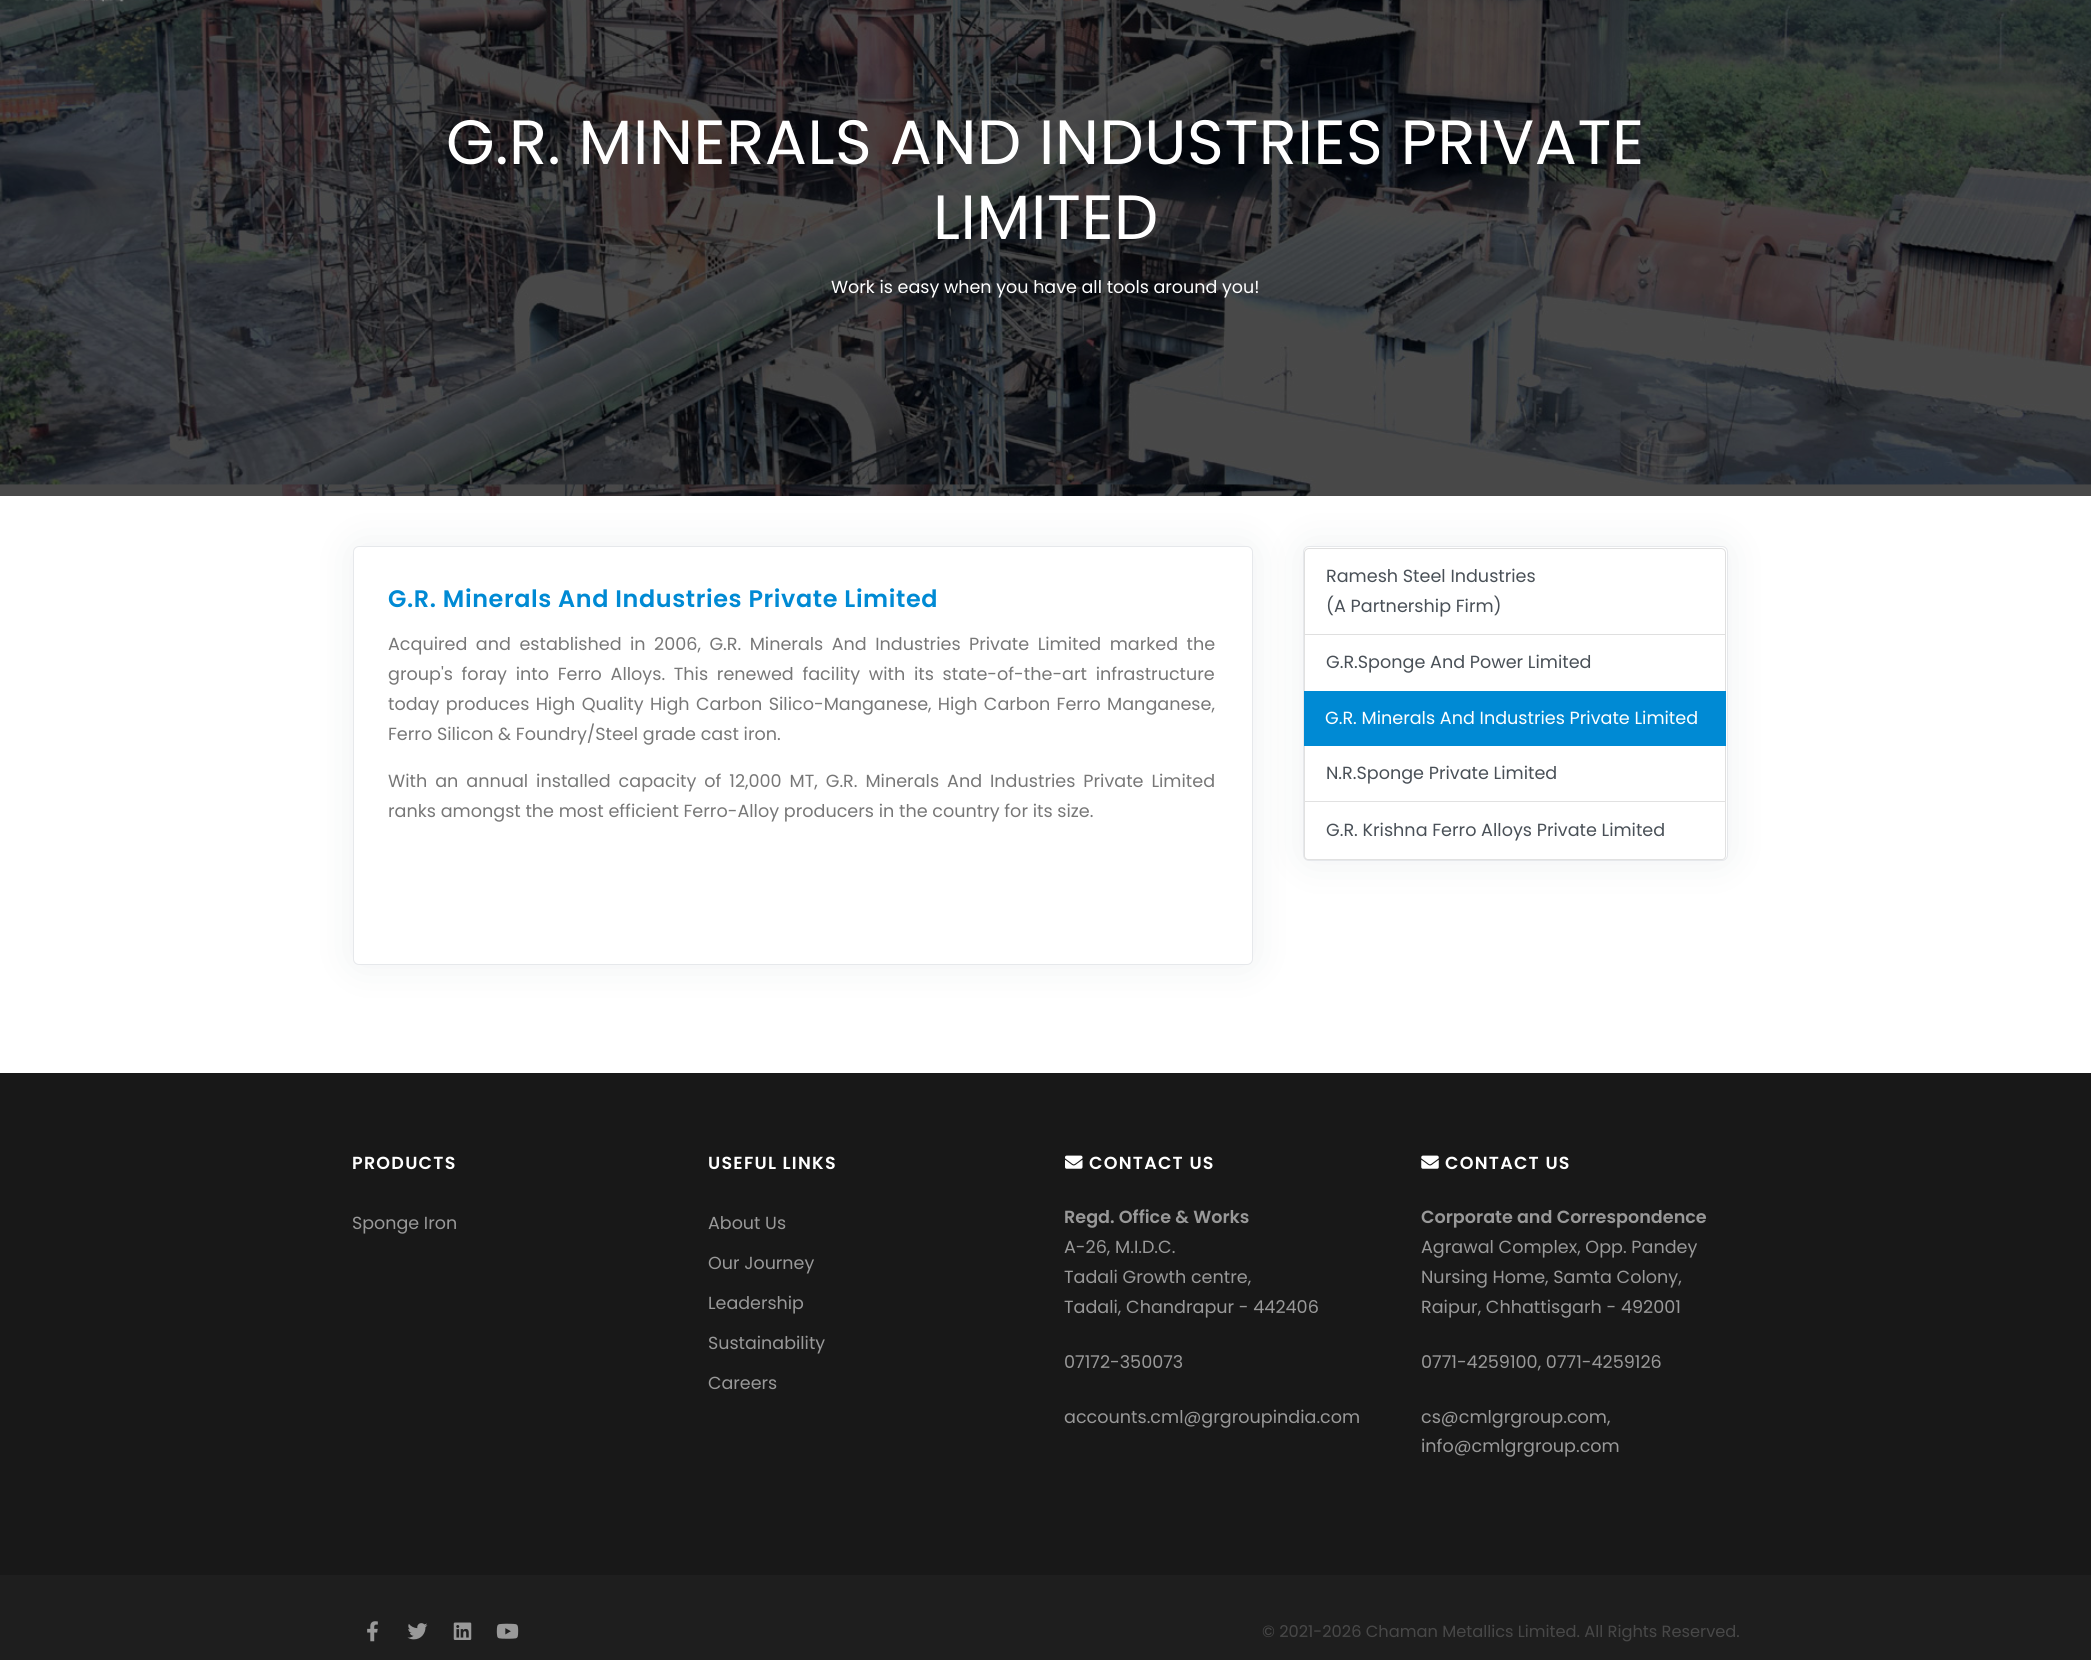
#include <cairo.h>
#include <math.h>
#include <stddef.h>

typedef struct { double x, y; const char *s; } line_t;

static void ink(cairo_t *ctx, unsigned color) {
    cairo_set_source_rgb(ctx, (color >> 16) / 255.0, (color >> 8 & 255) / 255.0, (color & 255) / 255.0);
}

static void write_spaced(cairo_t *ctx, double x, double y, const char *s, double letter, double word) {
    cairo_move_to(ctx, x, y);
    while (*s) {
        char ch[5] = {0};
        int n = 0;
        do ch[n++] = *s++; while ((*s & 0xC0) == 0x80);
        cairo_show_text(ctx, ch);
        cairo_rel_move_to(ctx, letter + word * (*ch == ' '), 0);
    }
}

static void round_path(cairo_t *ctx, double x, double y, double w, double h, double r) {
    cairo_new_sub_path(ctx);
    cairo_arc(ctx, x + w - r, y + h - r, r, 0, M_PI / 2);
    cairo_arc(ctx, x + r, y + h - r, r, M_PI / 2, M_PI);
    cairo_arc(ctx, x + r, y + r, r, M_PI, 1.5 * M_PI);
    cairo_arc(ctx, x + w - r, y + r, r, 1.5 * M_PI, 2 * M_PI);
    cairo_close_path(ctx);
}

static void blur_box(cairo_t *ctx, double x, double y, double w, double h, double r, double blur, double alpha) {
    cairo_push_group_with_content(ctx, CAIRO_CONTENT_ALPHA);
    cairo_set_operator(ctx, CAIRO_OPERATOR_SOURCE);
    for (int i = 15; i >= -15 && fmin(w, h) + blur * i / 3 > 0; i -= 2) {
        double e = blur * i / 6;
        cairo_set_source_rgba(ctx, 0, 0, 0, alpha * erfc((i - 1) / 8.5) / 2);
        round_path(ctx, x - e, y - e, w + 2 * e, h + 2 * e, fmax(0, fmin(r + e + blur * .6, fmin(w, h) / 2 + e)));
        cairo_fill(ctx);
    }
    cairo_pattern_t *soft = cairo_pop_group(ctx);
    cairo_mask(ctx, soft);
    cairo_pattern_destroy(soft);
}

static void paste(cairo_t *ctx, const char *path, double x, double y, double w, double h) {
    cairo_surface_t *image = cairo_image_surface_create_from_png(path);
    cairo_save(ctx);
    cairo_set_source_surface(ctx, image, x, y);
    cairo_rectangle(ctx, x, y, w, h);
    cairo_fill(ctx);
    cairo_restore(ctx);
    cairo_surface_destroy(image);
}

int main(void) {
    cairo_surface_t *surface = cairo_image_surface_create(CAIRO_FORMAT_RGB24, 2091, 1660);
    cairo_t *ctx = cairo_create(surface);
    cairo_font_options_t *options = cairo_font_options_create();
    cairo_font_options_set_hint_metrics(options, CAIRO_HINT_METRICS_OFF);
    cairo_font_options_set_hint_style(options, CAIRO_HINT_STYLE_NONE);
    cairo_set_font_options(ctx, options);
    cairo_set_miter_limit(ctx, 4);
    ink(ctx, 0x181818);
    cairo_paint(ctx);
    paste(ctx, "media/2.png", 0, 0, 2091, 496);
    paste(ctx, "media/1.png", 45, 0, 79, 2);
    cairo_select_font_face(ctx, "Poppins", CAIRO_FONT_SLANT_NORMAL, CAIRO_FONT_WEIGHT_NORMAL);
    cairo_set_font_size(ctx, 62.5);
    ink(ctx, 0xFFFFFF);
    write_spaced(ctx, 446, 164, "G.R. MINERALS AND INDUSTRIES PRIVATE", 0.6, 0);
    write_spaced(ctx, 933, 239, "LIMITED", 0.6, 0);
    cairo_set_font_size(ctx, 17.5);
    cairo_move_to(ctx, 831, 293);
    cairo_show_text(ctx, "Work is easy when you have all tools around you!");
    cairo_rectangle(ctx, 0, 496, 2091, 577);
    cairo_fill(ctx);
    ink(ctx, 0x9AA1AB);
    blur_box(ctx, 353, 546, 900, 419, 6, 22, 0.15);
    ink(ctx, 0xFFFFFF);
    round_path(ctx, 353.5, 546.5, 899, 418, 5.5);
    cairo_fill_preserve(ctx);
    ink(ctx, 0xE6E8EB);
    cairo_set_line_width(ctx, 1);
    cairo_stroke(ctx);
    cairo_select_font_face(ctx, "Poppins SemiBold", CAIRO_FONT_SLANT_NORMAL, CAIRO_FONT_WEIGHT_NORMAL);
    cairo_set_font_size(ctx, 23.9);
    ink(ctx, 0x008AD4);
    write_spaced(ctx, 388, 607, "G.R. Minerals And Industries Private Limited", 0.6, 0);
    cairo_select_font_face(ctx, "Poppins", CAIRO_FONT_SLANT_NORMAL, CAIRO_FONT_WEIGHT_NORMAL);
    cairo_set_font_size(ctx, 17.6);
    ink(ctx, 0x777777);
    write_spaced(ctx, 388, 650, "Acquired and established in 2006, G.R. Minerals And Industries Private Limited marked the", 0, 3.75);
    write_spaced(ctx, 388, 680, "group's foray into Ferro Alloys. This renewed facility with its state-of-the-art infrastructure", 0, 4);
    write_spaced(ctx, 388, 710, "today produces High Quality High Carbon Silico-Manganese, High Carbon Ferro Manganese,", 0, 1.6);
    cairo_move_to(ctx, 388, 740);
    cairo_show_text(ctx, "Ferro Silicon & Foundry/Steel grade cast iron.");
    write_spaced(ctx, 388, 787, "With an annual installed capacity of 12,000 MT, G.R. Minerals And Industries Private Limited", 0, 3.25);
    cairo_move_to(ctx, 388, 817);
    cairo_show_text(ctx, "ranks amongst the most efficient Ferro-Alloy producers in the country for its size.");
    ink(ctx, 0x9AA1AB);
    blur_box(ctx, 1303, 546, 425, 315, 6, 22, 0.15);
    ink(ctx, 0xFFFFFF);
    round_path(ctx, 1303.5, 546.5, 424, 314, 5.5);
    cairo_fill_preserve(ctx);
    ink(ctx, 0xE6E8EB);
    cairo_stroke(ctx);
    cairo_new_path(ctx);
    cairo_move_to(ctx, 1309, 548.5);
    cairo_line_to(ctx, 1721, 548.5);
    cairo_curve_to(ctx, 1723.5, 548.5, 1725.5, 550.5, 1725.5, 553);
    cairo_line_to(ctx, 1725.5, 634.5);
    cairo_line_to(ctx, 1304.5, 634.5);
    cairo_line_to(ctx, 1304.5, 553);
    cairo_curve_to(ctx, 1304.5, 550.5, 1306.5, 548.5, 1309, 548.5);
    cairo_close_path(ctx);
    ink(ctx, 0xDFDFDF);
    cairo_stroke(ctx);
    ink(ctx, 0x495057);
    cairo_move_to(ctx, 1326, 582);
    cairo_show_text(ctx, "Ramesh Steel Industries");
    cairo_move_to(ctx, 1326, 612);
    cairo_show_text(ctx, "(A Partnership Firm)");
    ink(ctx, 0xDFDFDF);
    cairo_new_path(ctx);
    cairo_move_to(ctx, 1726, 635);
    cairo_line_to(ctx, 1726, 692);
    cairo_line_to(ctx, 1725, 691);
    cairo_line_to(ctx, 1725, 635);
    cairo_close_path(ctx);
    cairo_fill(ctx);
    cairo_set_source_rgba(ctx, 0, 0, 0, 0.12);
    cairo_new_path(ctx);
    cairo_move_to(ctx, 1304, 692);
    cairo_line_to(ctx, 1304, 635);
    cairo_line_to(ctx, 1305, 635);
    cairo_line_to(ctx, 1305, 691);
    cairo_close_path(ctx);
    cairo_fill(ctx);
    ink(ctx, 0x495057);
    cairo_move_to(ctx, 1326, 668);
    cairo_show_text(ctx, "G.R.Sponge And Power Limited");
    ink(ctx, 0x008AD4);
    cairo_rectangle(ctx, 1304, 691, 422, 55);
    cairo_fill(ctx);
    ink(ctx, 0xFFFFFF);
    cairo_move_to(ctx, 1325, 724);
    cairo_show_text(ctx, "G.R. Minerals And Industries Private Limited");
    ink(ctx, 0xDFDFDF);
    cairo_new_path(ctx);
    cairo_move_to(ctx, 1726, 746);
    cairo_line_to(ctx, 1726, 802);
    cairo_line_to(ctx, 1725, 801);
    cairo_line_to(ctx, 1725, 746);
    cairo_close_path(ctx);
    cairo_fill(ctx);
    cairo_set_source_rgba(ctx, 0, 0, 0, 0.12);
    cairo_new_path(ctx);
    cairo_move_to(ctx, 1726, 802);
    cairo_line_to(ctx, 1304, 802);
    cairo_line_to(ctx, 1305, 801);
    cairo_line_to(ctx, 1725, 801);
    cairo_close_path(ctx);
    cairo_fill(ctx);
    cairo_new_path(ctx);
    cairo_move_to(ctx, 1304, 802);
    cairo_line_to(ctx, 1304, 746);
    cairo_line_to(ctx, 1305, 746);
    cairo_line_to(ctx, 1305, 801);
    cairo_close_path(ctx);
    cairo_fill(ctx);
    ink(ctx, 0x495057);
    cairo_move_to(ctx, 1326, 779);
    cairo_show_text(ctx, "N.R.Sponge Private Limited");
    ink(ctx, 0xFFFFFF);
    cairo_new_path(ctx);
    cairo_move_to(ctx, 1304, 803);
    cairo_line_to(ctx, 1726, 803);
    cairo_line_to(ctx, 1726, 855);
    cairo_curve_to(ctx, 1726, 858, 1724, 860, 1721, 860);
    cairo_line_to(ctx, 1309, 860);
    cairo_curve_to(ctx, 1306, 860, 1304, 858, 1304, 855);
    cairo_close_path(ctx);
    cairo_fill(ctx);
    cairo_set_source_rgba(ctx, 0, 0, 0, 0.12);
    cairo_set_fill_rule(ctx, CAIRO_FILL_RULE_EVEN_ODD);
    cairo_new_path(ctx);
    cairo_move_to(ctx, 1304, 802);
    cairo_line_to(ctx, 1726, 802);
    cairo_line_to(ctx, 1726, 856);
    cairo_curve_to(ctx, 1726, 858, 1724, 860, 1722, 860);
    cairo_line_to(ctx, 1308, 860);
    cairo_curve_to(ctx, 1306, 860, 1304, 858, 1304, 856);
    cairo_close_path(ctx);
    cairo_move_to(ctx, 1305, 802);
    cairo_line_to(ctx, 1725, 802);
    cairo_line_to(ctx, 1725, 856);
    cairo_curve_to(ctx, 1725, 857, 1724, 859, 1722, 859);
    cairo_line_to(ctx, 1308, 859);
    cairo_curve_to(ctx, 1306, 859, 1305, 857, 1305, 856);
    cairo_close_path(ctx);
    cairo_fill(ctx);
    ink(ctx, 0x495057);
    cairo_move_to(ctx, 1326, 836);
    cairo_show_text(ctx, "G.R. Krishna Ferro Alloys Private Limited");
    cairo_select_font_face(ctx, "Poppins SemiBold", CAIRO_FONT_SLANT_NORMAL, CAIRO_FONT_WEIGHT_NORMAL);
    cairo_set_font_size(ctx, 17.5);
    ink(ctx, 0xFFFFFF);
    write_spaced(ctx, 352, 1169, "PRODUCTS", 1.25, 0);
    cairo_select_font_face(ctx, "Poppins", CAIRO_FONT_SLANT_NORMAL, CAIRO_FONT_WEIGHT_NORMAL);
    ink(ctx, 0x999999);
    cairo_move_to(ctx, 352, 1229);
    cairo_show_text(ctx, "Sponge Iron");
    cairo_select_font_face(ctx, "Poppins SemiBold", CAIRO_FONT_SLANT_NORMAL, CAIRO_FONT_WEIGHT_NORMAL);
    ink(ctx, 0xFFFFFF);
    write_spaced(ctx, 708, 1169, "USEFUL LINKS", 1.25, 0);
    cairo_select_font_face(ctx, "Poppins", CAIRO_FONT_SLANT_NORMAL, CAIRO_FONT_WEIGHT_NORMAL);
    ink(ctx, 0x999999);
    {
        static const line_t items[] = {
            {708, 1229, "About Us"},
            {708, 1269, "Our Journey"},
            {708, 1309, "Leadership"},
            {708, 1349, "Sustainability"},
            {708, 1389, "Careers"},
        };
        for (size_t i = 0; i < sizeof items / sizeof *items; i++) {
            cairo_move_to(ctx, items[i].x, items[i].y);
            cairo_show_text(ctx, items[i].s);
        }
    }
    paste(ctx, "media/3.png", 1065, 1155, 18, 14);
    cairo_select_font_face(ctx, "Poppins SemiBold", CAIRO_FONT_SLANT_NORMAL, CAIRO_FONT_WEIGHT_NORMAL);
    ink(ctx, 0xFFFFFF);
    write_spaced(ctx, 1089, 1169, "CONTACT US", 1.25, 0);
    cairo_set_font_size(ctx, 17.6);
    ink(ctx, 0x999999);
    cairo_move_to(ctx, 1064, 1223);
    cairo_show_text(ctx, "Regd. Office & Works");
    cairo_select_font_face(ctx, "Poppins", CAIRO_FONT_SLANT_NORMAL, CAIRO_FONT_WEIGHT_NORMAL);
    {
        static const line_t items[] = {
            {1064, 1253, "A-26, M.I.D.C."},
            {1064, 1283, "Tadali Growth centre,"},
            {1064, 1313, "Tadali, Chandrapur - 442406"},
            {1064, 1368, "07172-350073"},
            {1064, 1423, "accounts.cml@grgroupindia.com"},
        };
        for (size_t i = 0; i < sizeof items / sizeof *items; i++) {
            cairo_move_to(ctx, items[i].x, items[i].y);
            cairo_show_text(ctx, items[i].s);
        }
    }
    paste(ctx, "media/4.png", 1421, 1155, 18, 14);
    cairo_select_font_face(ctx, "Poppins SemiBold", CAIRO_FONT_SLANT_NORMAL, CAIRO_FONT_WEIGHT_NORMAL);
    cairo_set_font_size(ctx, 17.5);
    ink(ctx, 0xFFFFFF);
    write_spaced(ctx, 1445, 1169, "CONTACT US", 1.25, 0);
    cairo_set_font_size(ctx, 17.6);
    ink(ctx, 0x999999);
    cairo_move_to(ctx, 1421, 1223);
    cairo_show_text(ctx, "Corporate and Correspondence");
    cairo_select_font_face(ctx, "Poppins", CAIRO_FONT_SLANT_NORMAL, CAIRO_FONT_WEIGHT_NORMAL);
    {
        static const line_t items[] = {
            {1421, 1253, "Agrawal Complex, Opp. Pandey"},
            {1421, 1283, "Nursing Home, Samta Colony,"},
            {1421, 1313, "Raipur, Chhattisgarh - 492001"},
            {1421, 1368, "0771-4259100, 0771-4259126"},
            {1421, 1423, "cs@cmlgrgroup.com,"},
            {1421, 1452, "info@cmlgrgroup.com"},
        };
        for (size_t i = 0; i < sizeof items / sizeof *items; i++) {
            cairo_move_to(ctx, items[i].x, items[i].y);
            cairo_show_text(ctx, items[i].s);
        }
    }
    ink(ctx, 0x1E1E1E);
    cairo_rectangle(ctx, 0, 1575, 2091, 85);
    cairo_fill(ctx);
    paste(ctx, "media/5.png", 367, 1621, 11, 21);
    paste(ctx, "media/6.png", 407, 1623, 21, 17);
    paste(ctx, "media/7.png", 453, 1622, 19, 18);
    paste(ctx, "media/8.png", 496, 1623, 23, 16);
    cairo_set_font_size(ctx, 16.25);
    ink(ctx, 0x484848);
    cairo_move_to(ctx, 1262, 1637);
    cairo_show_text(ctx, "© 2021-2026 Chaman Metallics Limited. All Rights Reserved.");
    cairo_surface_write_to_png(surface, "image.png");
    cairo_font_options_destroy(options);
    cairo_destroy(ctx);
    cairo_surface_destroy(surface);
    return 0;
}
